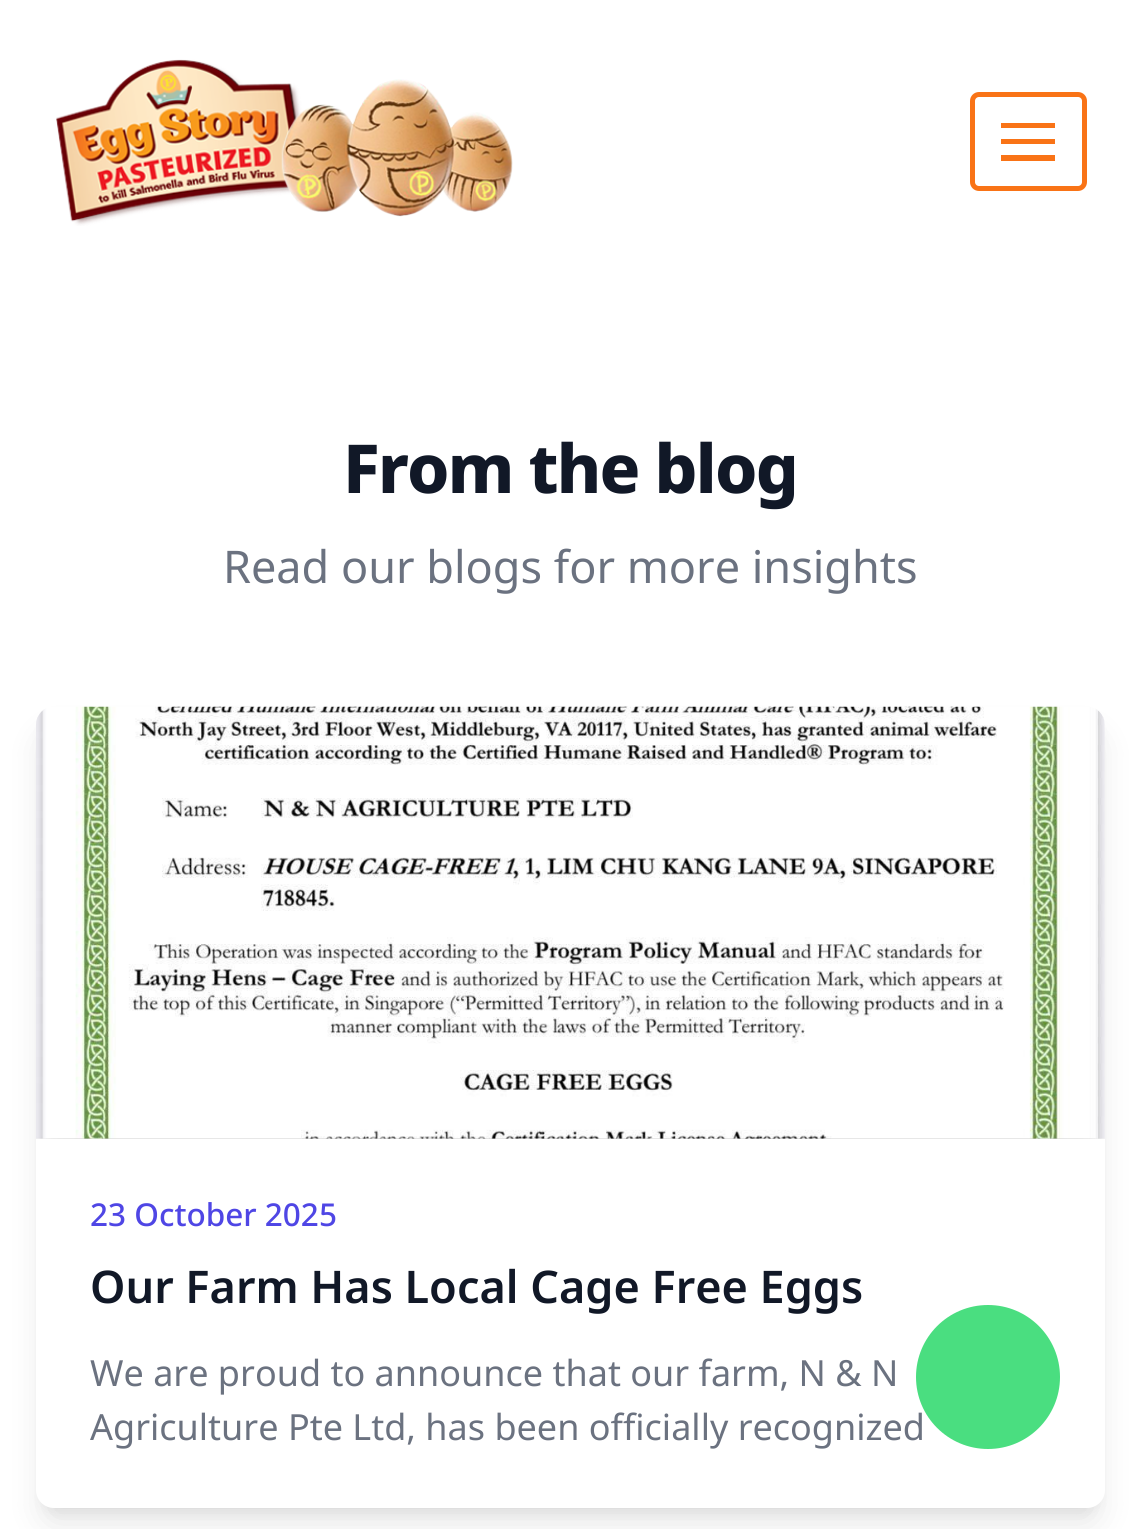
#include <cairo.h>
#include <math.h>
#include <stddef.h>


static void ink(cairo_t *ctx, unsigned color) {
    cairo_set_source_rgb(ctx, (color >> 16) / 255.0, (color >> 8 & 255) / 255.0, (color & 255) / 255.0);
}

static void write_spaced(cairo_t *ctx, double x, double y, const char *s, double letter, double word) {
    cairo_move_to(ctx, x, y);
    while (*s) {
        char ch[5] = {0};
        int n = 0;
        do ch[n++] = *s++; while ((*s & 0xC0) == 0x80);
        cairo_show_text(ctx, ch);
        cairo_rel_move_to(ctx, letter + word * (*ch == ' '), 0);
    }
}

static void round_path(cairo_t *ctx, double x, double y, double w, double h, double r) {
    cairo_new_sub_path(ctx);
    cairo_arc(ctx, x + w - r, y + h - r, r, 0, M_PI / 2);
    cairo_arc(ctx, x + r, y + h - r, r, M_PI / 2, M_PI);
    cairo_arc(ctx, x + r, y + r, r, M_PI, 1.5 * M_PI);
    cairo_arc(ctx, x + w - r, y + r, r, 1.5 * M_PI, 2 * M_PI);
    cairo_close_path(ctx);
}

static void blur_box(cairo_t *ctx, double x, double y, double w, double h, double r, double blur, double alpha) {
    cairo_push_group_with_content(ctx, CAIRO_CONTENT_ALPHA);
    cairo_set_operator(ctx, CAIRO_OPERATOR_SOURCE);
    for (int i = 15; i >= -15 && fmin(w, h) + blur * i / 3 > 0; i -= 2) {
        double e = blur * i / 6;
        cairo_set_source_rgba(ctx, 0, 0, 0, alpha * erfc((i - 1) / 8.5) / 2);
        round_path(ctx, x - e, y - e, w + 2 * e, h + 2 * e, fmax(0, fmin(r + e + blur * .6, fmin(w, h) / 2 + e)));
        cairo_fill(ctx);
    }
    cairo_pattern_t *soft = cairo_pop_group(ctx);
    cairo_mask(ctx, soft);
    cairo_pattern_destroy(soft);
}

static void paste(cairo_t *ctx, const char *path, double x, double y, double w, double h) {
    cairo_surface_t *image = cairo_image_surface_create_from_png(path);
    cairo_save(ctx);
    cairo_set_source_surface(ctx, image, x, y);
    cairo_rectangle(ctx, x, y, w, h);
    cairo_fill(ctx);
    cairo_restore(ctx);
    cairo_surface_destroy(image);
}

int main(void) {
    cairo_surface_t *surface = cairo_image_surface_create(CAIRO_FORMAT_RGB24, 1139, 1529);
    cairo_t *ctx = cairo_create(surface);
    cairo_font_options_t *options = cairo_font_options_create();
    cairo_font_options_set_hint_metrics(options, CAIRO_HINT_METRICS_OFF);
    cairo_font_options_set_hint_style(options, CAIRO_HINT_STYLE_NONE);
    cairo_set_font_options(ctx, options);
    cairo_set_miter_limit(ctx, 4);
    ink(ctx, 0xFFFFFF);
    cairo_paint(ctx);
    paste(ctx, "media/1.png", 56, 59, 457, 167);
    round_path(ctx, 972.5, 94.5, 112, 94, 6.5);
    ink(ctx, 0xF97316);
    cairo_set_line_width(ctx, 5);
    cairo_stroke(ctx);
    cairo_new_path(ctx);
    cairo_move_to(ctx, 1001, 123);
    cairo_line_to(ctx, 1055, 123);
    cairo_line_to(ctx, 1055, 128);
    cairo_line_to(ctx, 1001, 128);
    cairo_close_path(ctx);
    cairo_move_to(ctx, 1001, 139);
    cairo_line_to(ctx, 1055, 139);
    cairo_line_to(ctx, 1055, 144);
    cairo_line_to(ctx, 1001, 144);
    cairo_close_path(ctx);
    cairo_move_to(ctx, 1001, 155);
    cairo_line_to(ctx, 1055, 155);
    cairo_line_to(ctx, 1055, 161);
    cairo_line_to(ctx, 1001, 161);
    cairo_close_path(ctx);
    cairo_fill(ctx);
    cairo_select_font_face(ctx, "Noto Sans ExtraBold", CAIRO_FONT_SLANT_NORMAL, CAIRO_FONT_WEIGHT_NORMAL);
    cairo_set_font_size(ctx, 67.5);
    ink(ctx, 0x111827);
    write_spaced(ctx, 343, 493, "From the blog", -1.75, 0);
    cairo_select_font_face(ctx, "Noto Sans", CAIRO_FONT_SLANT_NORMAL, CAIRO_FONT_WEIGHT_NORMAL);
    cairo_set_font_size(ctx, 45);
    ink(ctx, 0x6B7280);
    cairo_move_to(ctx, 223, 583);
    cairo_show_text(ctx, "Read our blogs for more insights");
    ink(ctx, 0x000000);
    blur_box(ctx, 45, 725, 1051, 783, 9, 7, 0.1);
    blur_box(ctx, 43, 736, 1055, 787, 11, 17, 0.1);
    paste(ctx, "media/2.png", 36, 706, 1069, 433);
    ink(ctx, 0xFFFFFF);
    cairo_new_path(ctx);
    cairo_move_to(ctx, 36, 1139);
    cairo_line_to(ctx, 1105, 1139);
    cairo_line_to(ctx, 1105, 1490);
    cairo_curve_to(ctx, 1105, 1500, 1097, 1508, 1087, 1508);
    cairo_line_to(ctx, 54, 1508);
    cairo_curve_to(ctx, 44, 1508, 36, 1500, 36, 1490);
    cairo_close_path(ctx);
    cairo_fill(ctx);
    cairo_select_font_face(ctx, "Noto Sans Medium", CAIRO_FONT_SLANT_NORMAL, CAIRO_FONT_WEIGHT_NORMAL);
    cairo_set_font_size(ctx, 31.5);
    ink(ctx, 0x4F46E5);
    cairo_move_to(ctx, 90, 1226);
    cairo_show_text(ctx, "23 October 2025");
    cairo_select_font_face(ctx, "Noto Sans SemiBold", CAIRO_FONT_SLANT_NORMAL, CAIRO_FONT_WEIGHT_NORMAL);
    cairo_set_font_size(ctx, 45);
    ink(ctx, 0x111827);
    cairo_move_to(ctx, 90, 1303);
    cairo_show_text(ctx, "Our Farm Has Local Cage Free Eggs");
    cairo_select_font_face(ctx, "Noto Sans", CAIRO_FONT_SLANT_NORMAL, CAIRO_FONT_WEIGHT_NORMAL);
    cairo_set_font_size(ctx, 36);
    ink(ctx, 0x6B7280);
    cairo_move_to(ctx, 90, 1386);
    cairo_show_text(ctx, "We are proud to announce that our farm, N & N");
    cairo_move_to(ctx, 90, 1440);
    cairo_show_text(ctx, "Agriculture Pte Ltd, has been officially recognized");
    ink(ctx, 0x4ADE80);
    cairo_new_path(ctx);
    cairo_arc(ctx, 988, 1377, 72, 0, 2 * M_PI);
    cairo_fill(ctx);
    cairo_surface_write_to_png(surface, "image.png");
    cairo_font_options_destroy(options);
    cairo_destroy(ctx);
    cairo_surface_destroy(surface);
    return 0;
}
